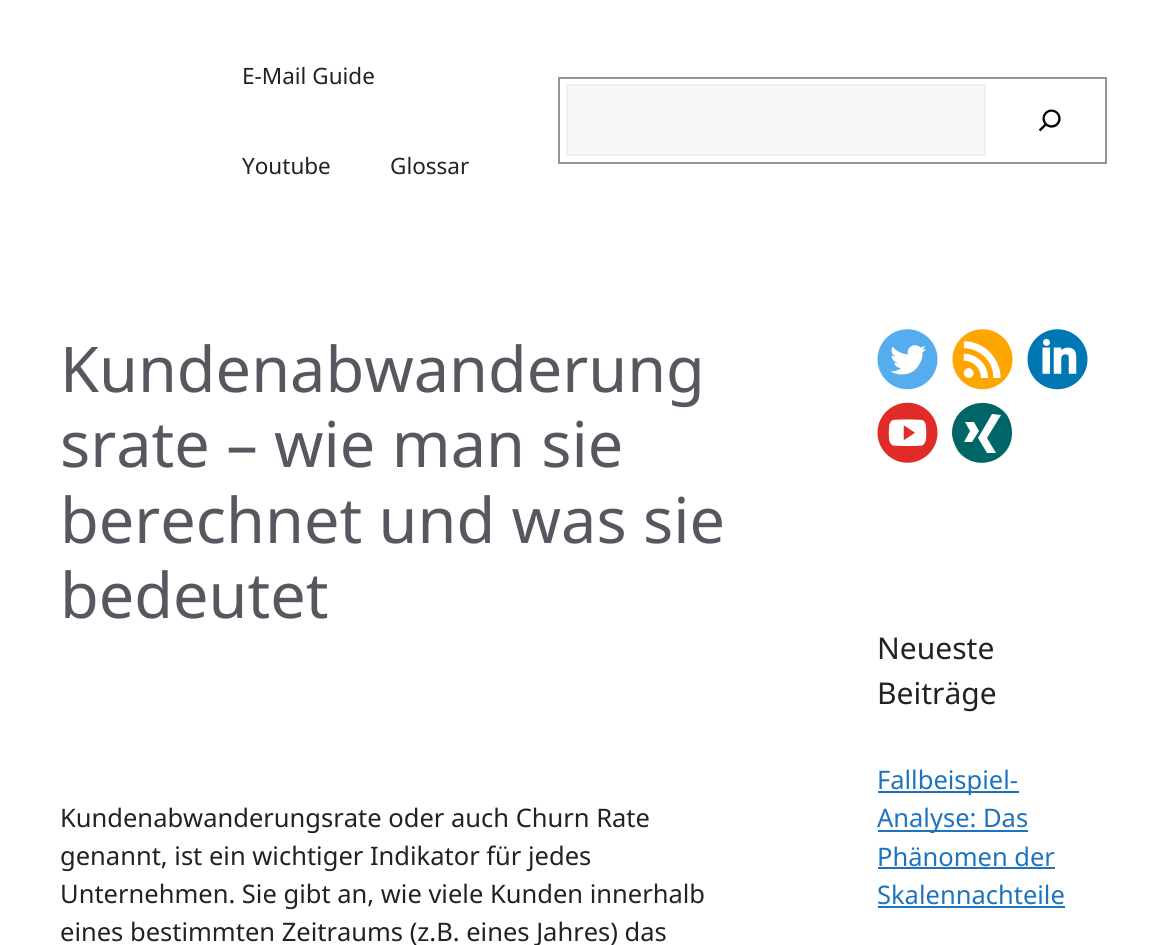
#include <cairo.h>
#include <math.h>
#include <stddef.h>

typedef struct { double x, y; const char *s; } line_t;

static void ink(cairo_t *ctx, unsigned color) {
    cairo_set_source_rgb(ctx, (color >> 16) / 255.0, (color >> 8 & 255) / 255.0, (color & 255) / 255.0);
}

static void paste(cairo_t *ctx, const char *path, double x, double y, double w, double h) {
    cairo_surface_t *image = cairo_image_surface_create_from_png(path);
    cairo_save(ctx);
    cairo_set_source_surface(ctx, image, x, y);
    cairo_rectangle(ctx, x, y, w, h);
    cairo_fill(ctx);
    cairo_restore(ctx);
    cairo_surface_destroy(image);
}

int main(void) {
    cairo_surface_t *surface = cairo_image_surface_create(CAIRO_FORMAT_RGB24, 1167, 945);
    cairo_t *ctx = cairo_create(surface);
    cairo_font_options_t *options = cairo_font_options_create();
    cairo_font_options_set_hint_metrics(options, CAIRO_HINT_METRICS_OFF);
    cairo_font_options_set_hint_style(options, CAIRO_HINT_STYLE_NONE);
    cairo_set_font_options(ctx, options);
    cairo_set_miter_limit(ctx, 4);
    ink(ctx, 0xFFFFFF);
    cairo_paint(ctx);
    cairo_select_font_face(ctx, "Noto Sans", CAIRO_FONT_SLANT_NORMAL, CAIRO_FONT_WEIGHT_NORMAL);
    cairo_set_font_size(ctx, 22.5);
    ink(ctx, 0x222222);
    {
        static const line_t items[] = {
            {242, 84, "E-Mail Guide"},
            {242, 174, "Youtube"},
            {390, 174, "Glossar"},
        };
        for (size_t i = 0; i < sizeof items / sizeof *items; i++) {
            cairo_move_to(ctx, items[i].x, items[i].y);
            cairo_show_text(ctx, items[i].s);
        }
    }
    cairo_rectangle(ctx, 559, 78, 547, 85);
    ink(ctx, 0x949494);
    cairo_stroke(ctx);
    ink(ctx, 0xF7F8F9);
    cairo_rectangle(ctx, 567, 85, 418, 70);
    cairo_fill_preserve(ctx);
    ink(ctx, 0xF0F0F0);
    cairo_stroke(ctx);
    paste(ctx, "media/1.png", 1038, 109, 23, 23);
    cairo_set_font_size(ctx, 63);
    ink(ctx, 0x575760);
    {
        static const line_t items[] = {
            {60, 392, "Kundenabwanderung"},
            {60, 467, "srate – wie man sie"},
            {60, 543, "berechnet und was sie"},
            {60, 618, "bedeutet"},
        };
        for (size_t i = 0; i < sizeof items / sizeof *items; i++) {
            cairo_move_to(ctx, items[i].x, items[i].y);
            cairo_show_text(ctx, items[i].s);
        }
    }
    cairo_set_font_size(ctx, 25.5);
    ink(ctx, 0x222222);
    {
        static const line_t items[] = {
            {60, 827, "Kundenabwanderungsrate oder auch Churn Rate"},
            {60, 865, "genannt, ist ein wichtiger Indikator für jedes"},
            {60, 903, "Unternehmen. Sie gibt an, wie viele Kunden innerhalb"},
            {60, 941, "eines bestimmten Zeitraums (z.B. eines Jahres) das"},
        };
        for (size_t i = 0; i < sizeof items / sizeof *items; i++) {
            cairo_move_to(ctx, items[i].x, items[i].y);
            cairo_show_text(ctx, items[i].s);
        }
    }
    paste(ctx, "media/2.png", 877, 329, 61, 61);
    paste(ctx, "media/3.png", 952, 329, 61, 61);
    paste(ctx, "media/4.png", 1027, 329, 61, 61);
    paste(ctx, "media/5.png", 877, 402, 61, 61);
    ink(ctx, 0x006567);
    cairo_new_path(ctx);
    cairo_move_to(ctx, 1012, 433);
    cairo_curve_to(ctx, 1012, 461, 976, 474, 958, 451);
    cairo_curve_to(ctx, 955, 446, 952, 439, 952, 433);
    cairo_curve_to(ctx, 952, 404, 989, 392, 1007, 415);
    cairo_curve_to(ctx, 1010, 420, 1012, 426, 1012, 433);
    cairo_close_path(ctx);
    cairo_move_to(ctx, 992, 414);
    cairo_line_to(ctx, 978, 438);
    cairo_line_to(ctx, 987, 453);
    cairo_line_to(ctx, 996, 453);
    cairo_line_to(ctx, 987, 438);
    cairo_line_to(ctx, 1001, 415);
    cairo_close_path(ctx);
    cairo_move_to(ctx, 974, 422);
    cairo_line_to(ctx, 965, 422);
    cairo_line_to(ctx, 970, 431);
    cairo_line_to(ctx, 964, 442);
    cairo_line_to(ctx, 972, 442);
    cairo_line_to(ctx, 979, 431);
    cairo_close_path(ctx);
    cairo_fill(ctx);
    cairo_set_font_size(ctx, 30);
    ink(ctx, 0x222222);
    cairo_move_to(ctx, 877, 659);
    cairo_show_text(ctx, "Neueste");
    cairo_move_to(ctx, 877, 704);
    cairo_show_text(ctx, "Beiträge");
    ink(ctx, 0x1E73BE);
    cairo_rectangle(ctx, 878, 791, 141, 2);
    cairo_fill(ctx);
    cairo_set_font_size(ctx, 25.5);
    cairo_move_to(ctx, 877, 789);
    cairo_show_text(ctx, "Fallbeispiel-");
    cairo_rectangle(ctx, 878, 830, 150, 2);
    cairo_fill(ctx);
    cairo_move_to(ctx, 877, 827);
    cairo_show_text(ctx, "Analyse: Das");
    cairo_move_to(ctx, 877, 866);
    cairo_show_text(ctx, "Phänomen der");
    cairo_rectangle(ctx, 878, 867, 177, 2);
    cairo_fill(ctx);
    cairo_move_to(ctx, 877, 904);
    cairo_show_text(ctx, "Skalennachteile");
    cairo_rectangle(ctx, 878, 906, 187, 2);
    cairo_fill(ctx);
    cairo_surface_write_to_png(surface, "image.png");
    cairo_font_options_destroy(options);
    cairo_destroy(ctx);
    cairo_surface_destroy(surface);
    return 0;
}
